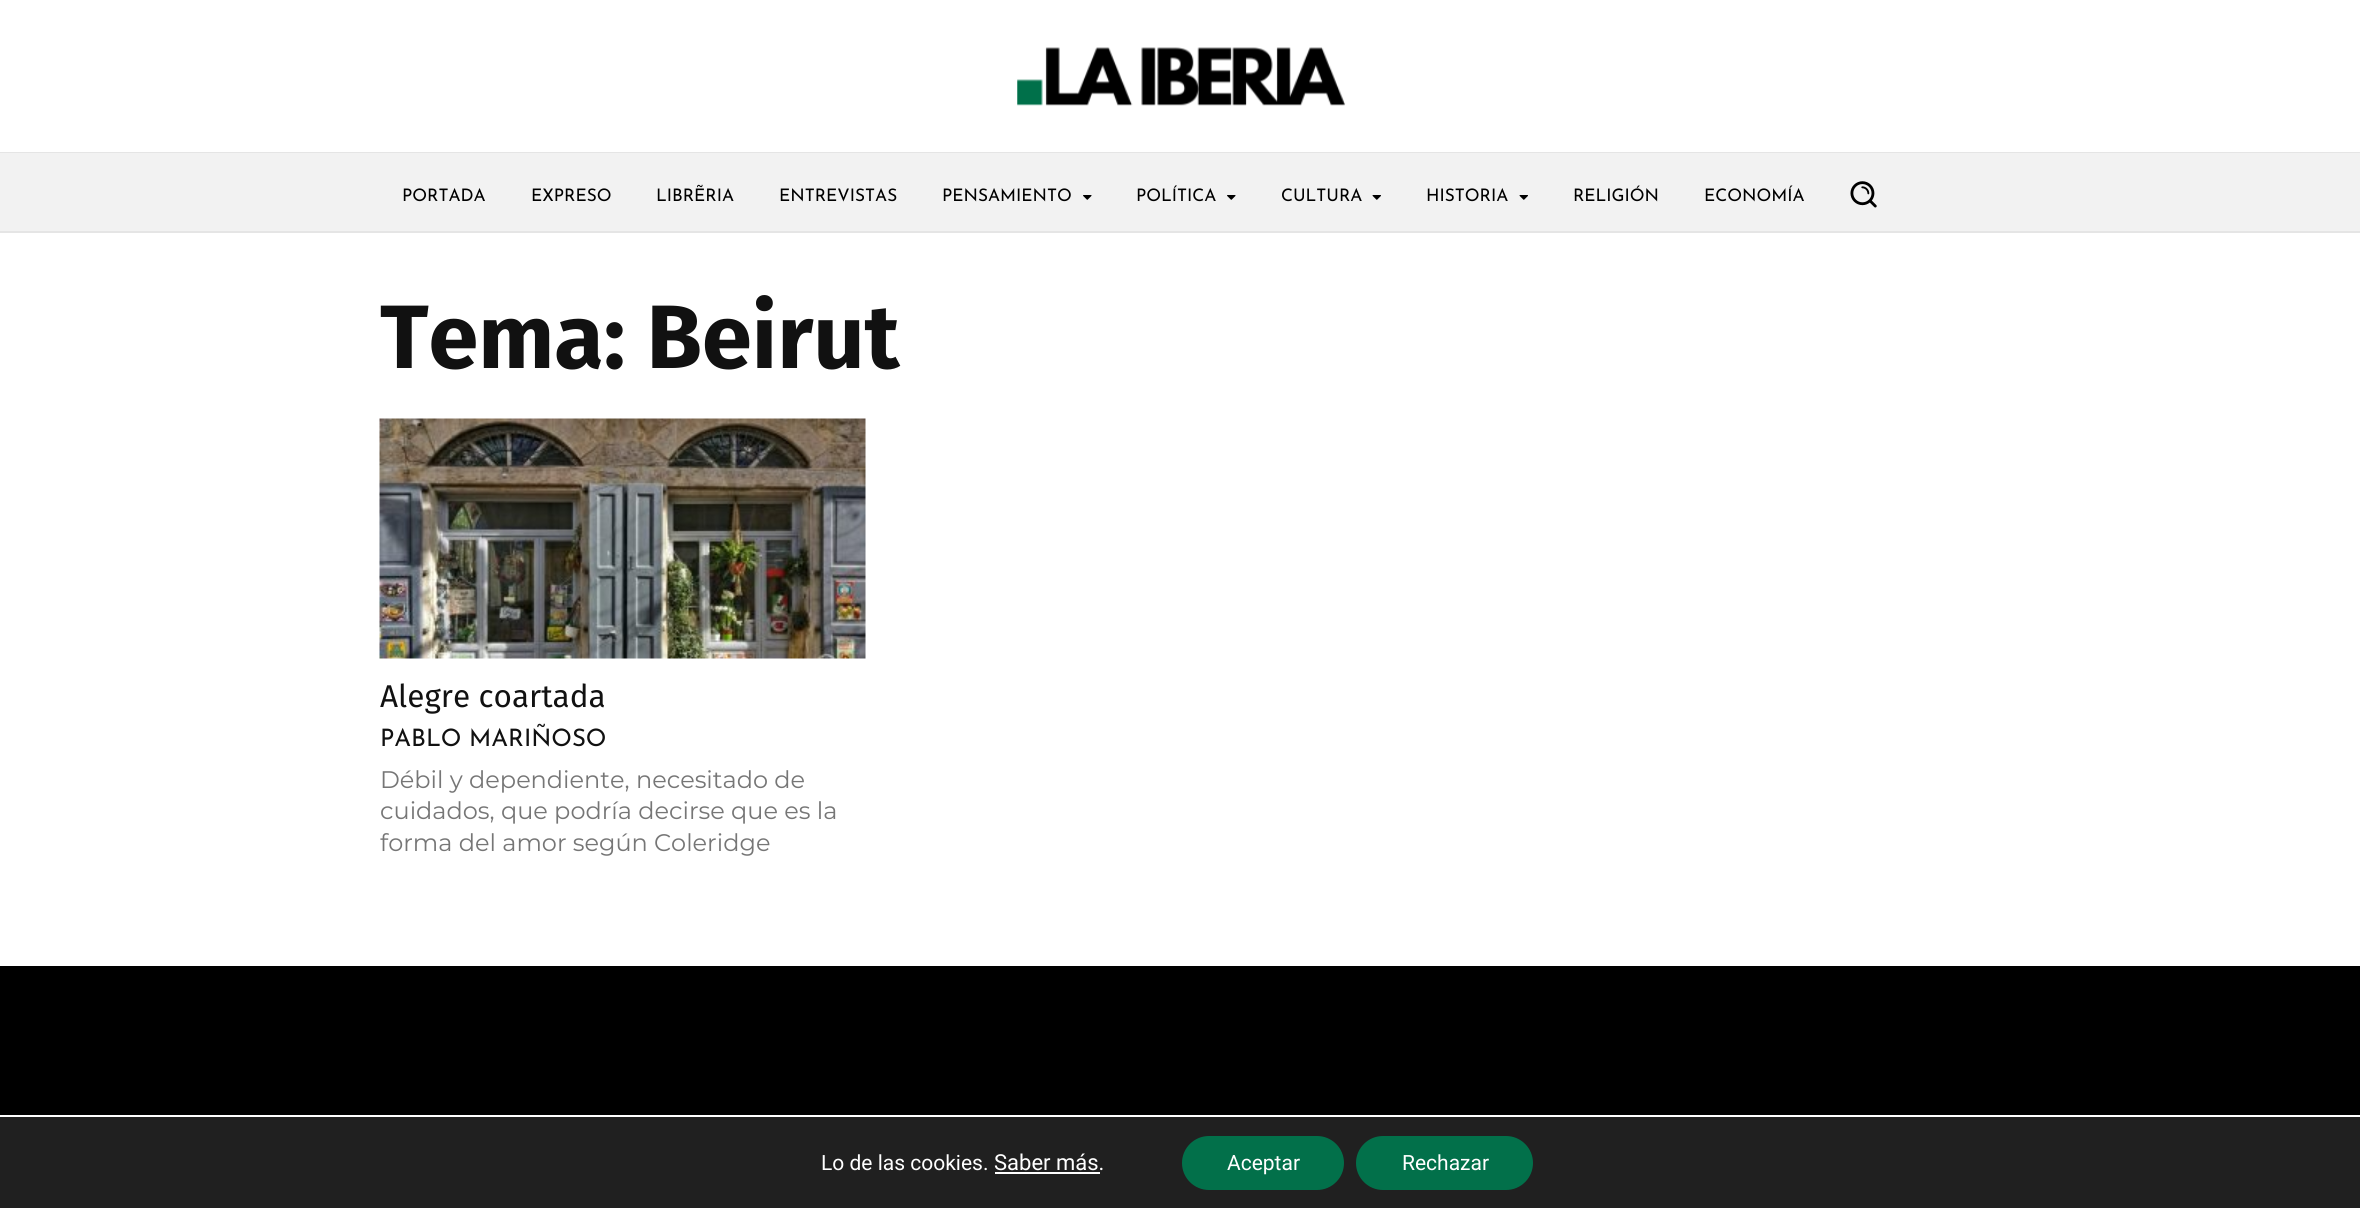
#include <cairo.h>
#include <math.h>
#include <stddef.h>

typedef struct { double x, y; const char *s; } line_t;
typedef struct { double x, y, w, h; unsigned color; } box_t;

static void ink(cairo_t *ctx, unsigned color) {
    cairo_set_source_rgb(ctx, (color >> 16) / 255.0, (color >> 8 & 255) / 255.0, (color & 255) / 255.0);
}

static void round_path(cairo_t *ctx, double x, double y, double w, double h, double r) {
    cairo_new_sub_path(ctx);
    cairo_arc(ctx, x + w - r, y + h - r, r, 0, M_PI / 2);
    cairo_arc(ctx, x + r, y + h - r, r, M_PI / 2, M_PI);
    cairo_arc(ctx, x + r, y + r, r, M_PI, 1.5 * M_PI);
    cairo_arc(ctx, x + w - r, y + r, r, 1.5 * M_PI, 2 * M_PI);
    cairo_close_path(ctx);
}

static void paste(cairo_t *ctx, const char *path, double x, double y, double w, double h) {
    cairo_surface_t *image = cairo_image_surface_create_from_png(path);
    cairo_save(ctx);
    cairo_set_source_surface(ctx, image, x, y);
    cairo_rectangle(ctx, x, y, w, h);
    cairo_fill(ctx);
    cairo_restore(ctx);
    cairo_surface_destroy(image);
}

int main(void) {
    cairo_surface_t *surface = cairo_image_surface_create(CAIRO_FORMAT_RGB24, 2360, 1208);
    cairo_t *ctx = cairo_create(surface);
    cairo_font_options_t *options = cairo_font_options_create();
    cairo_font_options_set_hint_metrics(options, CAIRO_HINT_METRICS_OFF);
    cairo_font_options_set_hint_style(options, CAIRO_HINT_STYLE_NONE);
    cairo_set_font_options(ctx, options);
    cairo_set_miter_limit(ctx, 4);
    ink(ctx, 0xFFFFFF);
    cairo_paint(ctx);
    paste(ctx, "media/1.png", 1017, 47, 329, 59);
    {
        static const box_t items[] = {
            {0, 152, 2360, 1, 0xE5E5E5},
            {0, 153, 2360, 78, 0xF2F2F2},
            {0, 231, 2360, 2, 0xE5E5E5},
        };
        for (size_t i = 0; i < sizeof items / sizeof *items; i++) {
            ink(ctx, items[i].color);
            cairo_rectangle(ctx, items[i].x, items[i].y, items[i].w, items[i].h);
            cairo_fill(ctx);
        }
    }
    cairo_select_font_face(ctx, "Josefin Sans", CAIRO_FONT_SLANT_NORMAL, CAIRO_FONT_WEIGHT_NORMAL);
    cairo_set_font_size(ctx, 17.25);
    ink(ctx, 0x000000);
    {
        static const line_t items[] = {
            {402, 201, "PORTADA"},
            {531, 201, "EXPRESO"},
            {656, 201, "LIBRẼRIA"},
            {779, 201, "ENTREVISTAS"},
            {942, 201, "PENSAMIENTO"},
        };
        for (size_t i = 0; i < sizeof items / sizeof *items; i++) {
            cairo_move_to(ctx, items[i].x, items[i].y);
            cairo_show_text(ctx, items[i].s);
        }
    }
    paste(ctx, "media/2.png", 1083, 195, 9, 5);
    cairo_move_to(ctx, 1136, 201);
    cairo_show_text(ctx, "POLÍTICA");
    paste(ctx, "media/2.png", 1227, 195, 9, 5);
    cairo_move_to(ctx, 1281, 201);
    cairo_show_text(ctx, "CULTURA");
    paste(ctx, "media/3.png", 1372, 195, 9, 5);
    cairo_move_to(ctx, 1426, 201);
    cairo_show_text(ctx, "HISTORIA");
    paste(ctx, "media/3.png", 1519, 195, 9, 5);
    cairo_move_to(ctx, 1573, 201);
    cairo_show_text(ctx, "RELIGIÓN");
    cairo_move_to(ctx, 1704, 201);
    cairo_show_text(ctx, "ECONOMÍA");
    paste(ctx, "media/4.png", 1850, 181, 27, 27);
    cairo_select_font_face(ctx, "Fira Sans", CAIRO_FONT_SLANT_NORMAL, CAIRO_FONT_WEIGHT_BOLD);
    cairo_set_font_size(ctx, 90);
    ink(ctx, 0x111111);
    cairo_move_to(ctx, 380, 368);
    cairo_show_text(ctx, "Tema: Beirut");
    paste(ctx, "media/5.png", 379, 418, 487, 241);
    cairo_select_font_face(ctx, "Fira Sans", CAIRO_FONT_SLANT_NORMAL, CAIRO_FONT_WEIGHT_NORMAL);
    cairo_set_font_size(ctx, 31.5);
    cairo_move_to(ctx, 380, 707);
    cairo_show_text(ctx, "Alegre coartada");
    cairo_select_font_face(ctx, "Josefin Sans", CAIRO_FONT_SLANT_NORMAL, CAIRO_FONT_WEIGHT_NORMAL);
    cairo_set_font_size(ctx, 24);
    cairo_move_to(ctx, 380, 746);
    cairo_show_text(ctx, "PABLO MARIÑOSO");
    cairo_select_font_face(ctx, "Montserrat", CAIRO_FONT_SLANT_NORMAL, CAIRO_FONT_WEIGHT_NORMAL);
    ink(ctx, 0x767676);
    {
        static const line_t items[] = {
            {380, 788, "Débil y dependiente, necesitado de"},
            {380, 819, "cuidados, que podría decirse que es la"},
            {380, 851, "forma del amor según Coleridge"},
        };
        for (size_t i = 0; i < sizeof items / sizeof *items; i++) {
            cairo_move_to(ctx, items[i].x, items[i].y);
            cairo_show_text(ctx, items[i].s);
        }
    }
    ink(ctx, 0x000000);
    cairo_rectangle(ctx, 0, 966, 2360, 149);
    cairo_fill(ctx);
    ink(ctx, 0x202020);
    cairo_rectangle(ctx, 0, 1117, 2360, 91);
    cairo_fill(ctx);
    cairo_select_font_face(ctx, "Roboto", CAIRO_FONT_SLANT_NORMAL, CAIRO_FONT_WEIGHT_NORMAL);
    cairo_set_font_size(ctx, 21);
    ink(ctx, 0xFFFFFF);
    cairo_move_to(ctx, 821, 1170);
    cairo_show_text(ctx, "Lo de las cookies.");
    cairo_set_font_size(ctx, 22);
    cairo_move_to(ctx, 994, 1170);
    cairo_show_text(ctx, "Saber más.");
    cairo_rectangle(ctx, 995, 1172, 105, 2);
    cairo_fill(ctx);
    ink(ctx, 0x02704A);
    round_path(ctx, 1182, 1136, 162, 54, 27);
    cairo_fill(ctx);
    cairo_set_font_size(ctx, 21);
    ink(ctx, 0xFFFFFF);
    cairo_move_to(ctx, 1227, 1170);
    cairo_show_text(ctx, "Aceptar");
    ink(ctx, 0x02704A);
    round_path(ctx, 1356, 1136, 177, 54, 27);
    cairo_fill(ctx);
    ink(ctx, 0xFFFFFF);
    cairo_move_to(ctx, 1402, 1170);
    cairo_show_text(ctx, "Rechazar");
    cairo_surface_write_to_png(surface, "image.png");
    cairo_font_options_destroy(options);
    cairo_destroy(ctx);
    cairo_surface_destroy(surface);
    return 0;
}
